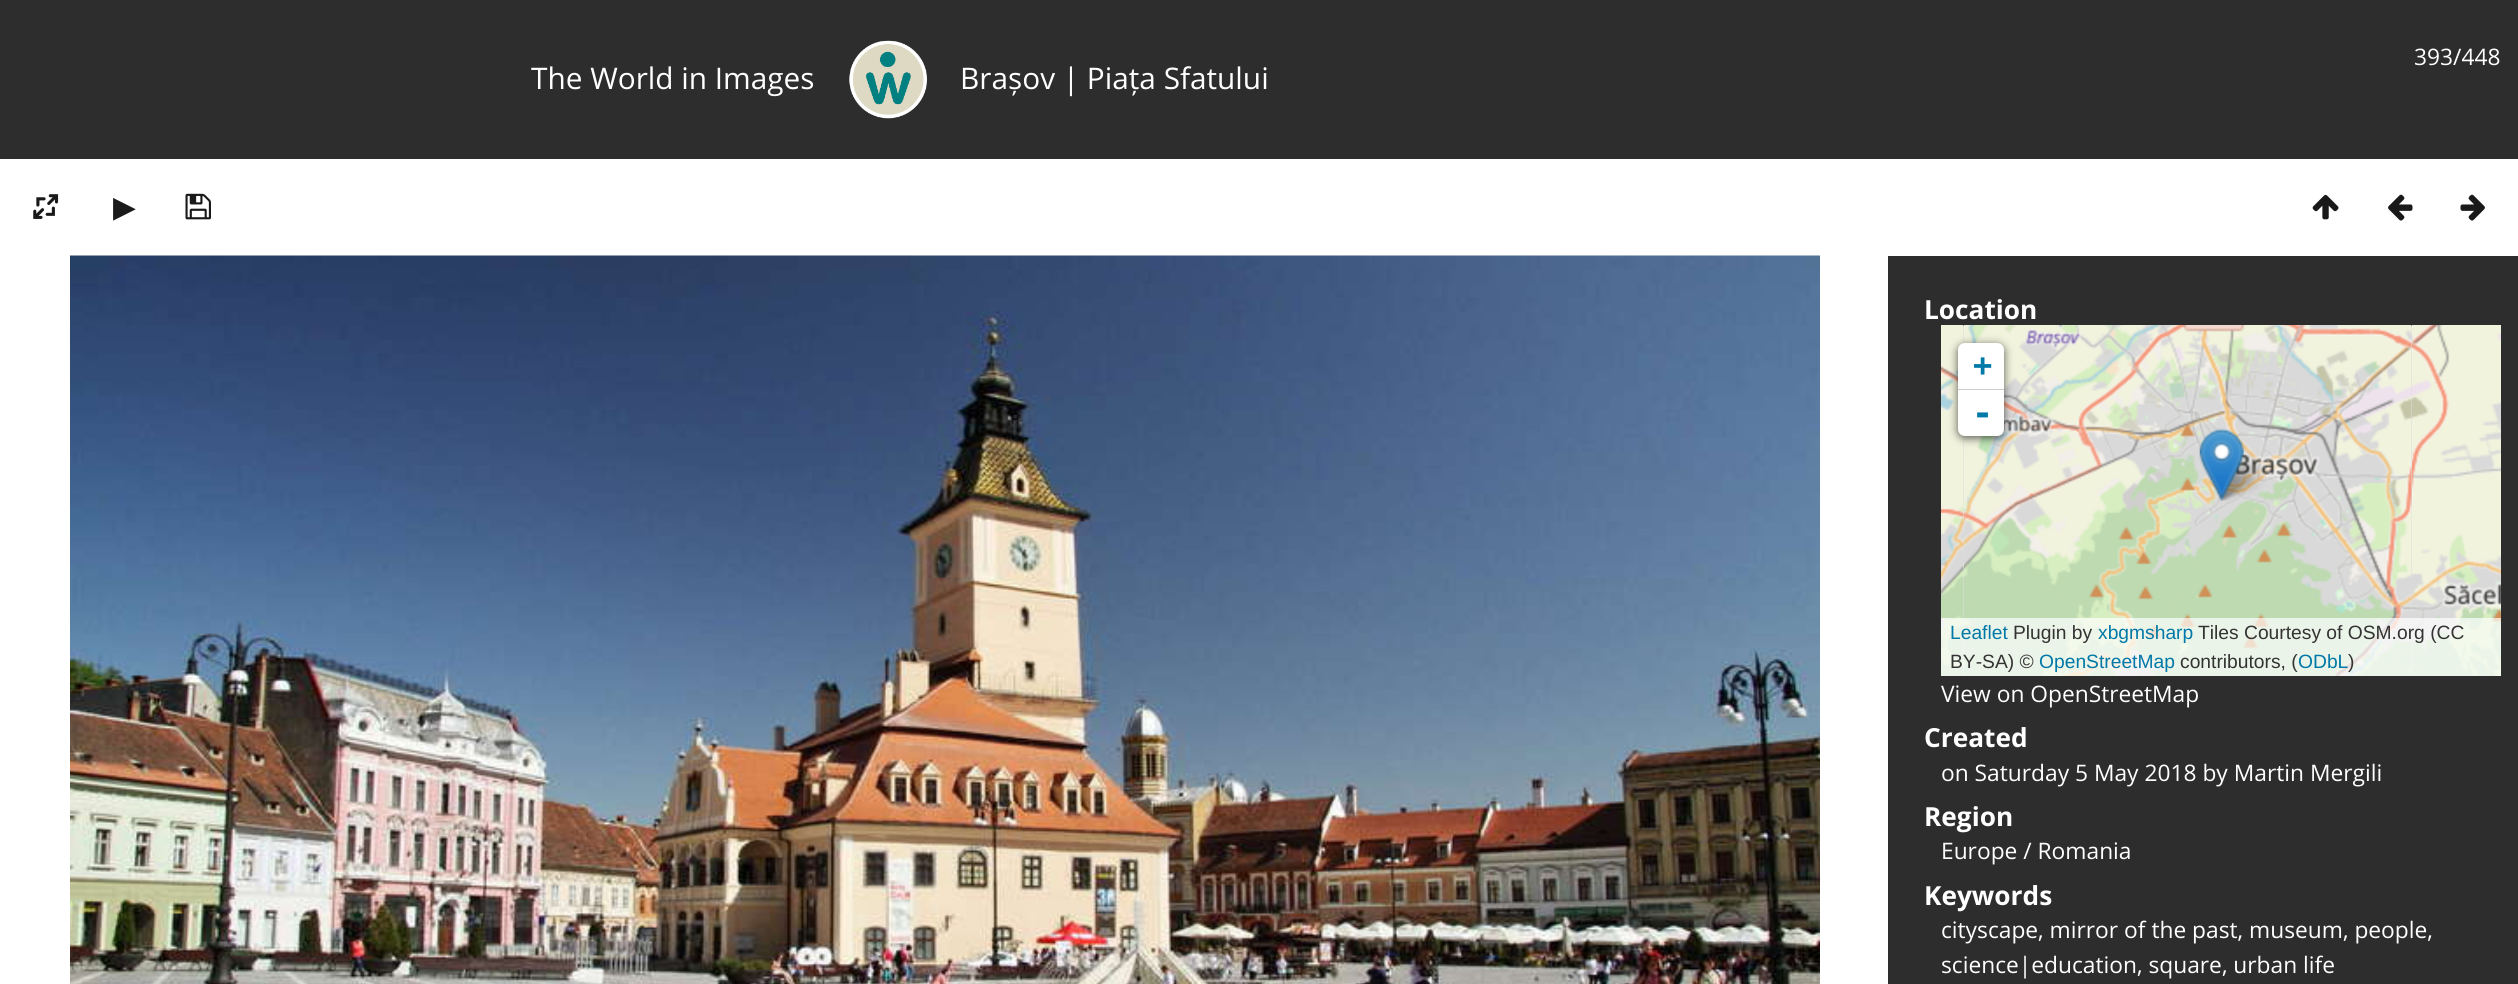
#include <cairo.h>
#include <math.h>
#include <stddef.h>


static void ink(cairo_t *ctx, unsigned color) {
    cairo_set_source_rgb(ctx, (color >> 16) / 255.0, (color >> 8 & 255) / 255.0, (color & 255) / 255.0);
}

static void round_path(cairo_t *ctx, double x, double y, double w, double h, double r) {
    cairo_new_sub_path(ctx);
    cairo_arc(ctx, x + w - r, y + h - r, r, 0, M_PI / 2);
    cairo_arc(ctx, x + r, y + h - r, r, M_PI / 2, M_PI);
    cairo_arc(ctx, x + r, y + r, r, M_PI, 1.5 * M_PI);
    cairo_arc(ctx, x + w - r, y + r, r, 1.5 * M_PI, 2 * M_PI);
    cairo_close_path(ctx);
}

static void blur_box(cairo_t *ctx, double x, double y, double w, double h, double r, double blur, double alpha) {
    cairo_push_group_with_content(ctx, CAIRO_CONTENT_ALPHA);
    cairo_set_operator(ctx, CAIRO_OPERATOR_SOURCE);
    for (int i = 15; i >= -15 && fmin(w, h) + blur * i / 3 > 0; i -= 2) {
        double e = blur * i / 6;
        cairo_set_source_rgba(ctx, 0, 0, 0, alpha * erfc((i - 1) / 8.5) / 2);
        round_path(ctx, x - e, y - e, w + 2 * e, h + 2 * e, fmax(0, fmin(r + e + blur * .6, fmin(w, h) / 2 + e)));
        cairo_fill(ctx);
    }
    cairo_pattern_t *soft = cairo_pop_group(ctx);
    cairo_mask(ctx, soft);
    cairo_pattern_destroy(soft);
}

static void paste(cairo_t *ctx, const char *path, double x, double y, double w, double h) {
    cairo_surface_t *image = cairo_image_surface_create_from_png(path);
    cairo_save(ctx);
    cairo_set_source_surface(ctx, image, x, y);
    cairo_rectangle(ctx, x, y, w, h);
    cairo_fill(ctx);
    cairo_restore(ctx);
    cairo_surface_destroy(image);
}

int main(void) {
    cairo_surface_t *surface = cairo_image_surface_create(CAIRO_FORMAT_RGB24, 2518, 984);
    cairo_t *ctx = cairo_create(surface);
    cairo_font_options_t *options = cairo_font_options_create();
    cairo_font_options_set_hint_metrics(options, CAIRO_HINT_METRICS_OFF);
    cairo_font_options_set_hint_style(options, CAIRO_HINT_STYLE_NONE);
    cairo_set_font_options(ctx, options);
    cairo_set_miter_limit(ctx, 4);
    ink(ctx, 0xFFFFFF);
    cairo_paint(ctx);
    ink(ctx, 0x2D2D2D);
    cairo_rectangle(ctx, 0, 0, 2518, 159);
    cairo_fill(ctx);
    cairo_select_font_face(ctx, "Open Sans", CAIRO_FONT_SLANT_NORMAL, CAIRO_FONT_WEIGHT_NORMAL);
    cairo_set_font_size(ctx, 22.75);
    ink(ctx, 0xFFFFFF);
    cairo_move_to(ctx, 2414, 65);
    cairo_show_text(ctx, "393/448");
    cairo_set_font_size(ctx, 29.75);
    cairo_move_to(ctx, 531, 89);
    cairo_show_text(ctx, "The World in Images");
    paste(ctx, "media/1.png", 849, 40, 79, 79);
    cairo_move_to(ctx, 960, 89);
    cairo_show_text(ctx, "Brașov | Piața Sfatului");
    paste(ctx, "media/2.png", 33, 194, 26, 25);
    cairo_select_font_face(ctx, "DejaVu Sans", CAIRO_FONT_SLANT_NORMAL, CAIRO_FONT_WEIGHT_NORMAL);
    ink(ctx, 0x1A1A1A);
    cairo_move_to(ctx, 113, 217);
    cairo_show_text(ctx, "▶");
    paste(ctx, "media/3.png", 185, 193, 26, 27);
    paste(ctx, "media/4.png", 2312, 194, 27, 26);
    paste(ctx, "media/5.png", 2388, 194, 25, 27);
    paste(ctx, "media/6.png", 2460, 194, 25, 27);
    paste(ctx, "media/7.png", 70, 255, 1750, 729);
    ink(ctx, 0x2D2D2D);
    cairo_rectangle(ctx, 1888, 256, 630, 728);
    cairo_fill(ctx);
    cairo_select_font_face(ctx, "Open Sans", CAIRO_FONT_SLANT_NORMAL, CAIRO_FONT_WEIGHT_BOLD);
    cairo_set_font_size(ctx, 26.25);
    ink(ctx, 0xFFFFFF);
    cairo_move_to(ctx, 1924, 319);
    cairo_show_text(ctx, "Location");
    ink(ctx, 0xDDDDDD);
    cairo_rectangle(ctx, 1963, 326, 449, 350);
    cairo_fill(ctx);
    paste(ctx, "media/8.png", 1941, 325, 23, 351);
    paste(ctx, "media/9.png", 1964, 325, 448, 351);
    paste(ctx, "media/10.png", 2412, 325, 89, 351);
    paste(ctx, "media/12.png", 2215, 451, 52, 50);
    paste(ctx, "media/11.png", 2199, 428, 45, 73);
    ink(ctx, 0x000000);
    blur_box(ctx, 1958, 345, 46, 93, 7, 4.5, 0.65);
    ink(ctx, 0xFFFFFF);
    cairo_new_path(ctx);
    cairo_move_to(ctx, 1965, 343);
    cairo_line_to(ctx, 1997, 343);
    cairo_curve_to(ctx, 2001, 343, 2004, 346, 2004, 350);
    cairo_line_to(ctx, 2004, 390);
    cairo_line_to(ctx, 1958, 390);
    cairo_line_to(ctx, 1958, 350);
    cairo_curve_to(ctx, 1958, 346, 1961, 343, 1965, 343);
    cairo_close_path(ctx);
    cairo_fill(ctx);
    ink(ctx, 0xCCCCCC);
    cairo_rectangle(ctx, 1958, 389, 46, 1);
    cairo_fill(ctx);
    cairo_select_font_face(ctx, "DejaVu Sans Mono", CAIRO_FONT_SLANT_NORMAL, CAIRO_FONT_WEIGHT_BOLD);
    cairo_set_font_size(ctx, 32);
    ink(ctx, 0x0078A8);
    cairo_move_to(ctx, 1973, 376);
    cairo_show_text(ctx, "+");
    ink(ctx, 0xFFFFFF);
    cairo_new_path(ctx);
    cairo_move_to(ctx, 1958, 390);
    cairo_line_to(ctx, 2004, 390);
    cairo_line_to(ctx, 2004, 429);
    cairo_curve_to(ctx, 2004, 433, 2001, 436, 1997, 436);
    cairo_line_to(ctx, 1965, 436);
    cairo_curve_to(ctx, 1961, 436, 1958, 433, 1958, 429);
    cairo_close_path(ctx);
    cairo_fill(ctx);
    cairo_set_font_size(ctx, 35);
    ink(ctx, 0x0078A8);
    cairo_move_to(ctx, 1972, 425);
    cairo_show_text(ctx, "-");
    cairo_set_source_rgba(ctx, 1, 1, 1, 0.7);
    cairo_rectangle(ctx, 1941, 618, 560, 58);
    cairo_fill(ctx);
    cairo_select_font_face(ctx, "Liberation Sans", CAIRO_FONT_SLANT_NORMAL, CAIRO_FONT_WEIGHT_NORMAL);
    cairo_set_font_size(ctx, 19.25);
    ink(ctx, 0x0078A8);
    cairo_move_to(ctx, 1950, 639);
    cairo_show_text(ctx, "Leaflet");
    ink(ctx, 0x333333);
    cairo_move_to(ctx, 2013, 639);
    cairo_show_text(ctx, "Plugin by");
    ink(ctx, 0x0078A8);
    cairo_move_to(ctx, 2098, 639);
    cairo_show_text(ctx, "xbgmsharp");
    ink(ctx, 0x333333);
    cairo_move_to(ctx, 2198, 639);
    cairo_show_text(ctx, "Tiles Courtesy of OSM.org (CC");
    cairo_move_to(ctx, 1950, 668);
    cairo_show_text(ctx, "BY-SA) ©");
    ink(ctx, 0x0078A8);
    cairo_move_to(ctx, 2039, 668);
    cairo_show_text(ctx, "OpenStreetMap");
    ink(ctx, 0x333333);
    cairo_move_to(ctx, 2180, 668);
    cairo_show_text(ctx, "contributors, (");
    ink(ctx, 0x0078A8);
    cairo_move_to(ctx, 2298, 668);
    cairo_show_text(ctx, "ODbL");
    ink(ctx, 0x333333);
    cairo_move_to(ctx, 2348, 668);
    cairo_show_text(ctx, ")");
    cairo_select_font_face(ctx, "Open Sans", CAIRO_FONT_SLANT_NORMAL, CAIRO_FONT_WEIGHT_NORMAL);
    cairo_set_font_size(ctx, 22.75);
    ink(ctx, 0xFFFFFF);
    cairo_move_to(ctx, 1941, 702);
    cairo_show_text(ctx, "View on OpenStreetMap");
    cairo_select_font_face(ctx, "Open Sans", CAIRO_FONT_SLANT_NORMAL, CAIRO_FONT_WEIGHT_BOLD);
    cairo_set_font_size(ctx, 26.25);
    cairo_move_to(ctx, 1924, 747);
    cairo_show_text(ctx, "Created");
    cairo_select_font_face(ctx, "Open Sans", CAIRO_FONT_SLANT_NORMAL, CAIRO_FONT_WEIGHT_NORMAL);
    cairo_set_font_size(ctx, 22.75);
    cairo_move_to(ctx, 1941, 781);
    cairo_show_text(ctx, "on Saturday 5 May 2018 by Martin Mergili");
    cairo_select_font_face(ctx, "Open Sans", CAIRO_FONT_SLANT_NORMAL, CAIRO_FONT_WEIGHT_BOLD);
    cairo_set_font_size(ctx, 26.25);
    cairo_move_to(ctx, 1924, 826);
    cairo_show_text(ctx, "Region");
    cairo_select_font_face(ctx, "Open Sans", CAIRO_FONT_SLANT_NORMAL, CAIRO_FONT_WEIGHT_NORMAL);
    cairo_set_font_size(ctx, 22.75);
    cairo_move_to(ctx, 1941, 859);
    cairo_show_text(ctx, "Europe / Romania");
    cairo_select_font_face(ctx, "Open Sans", CAIRO_FONT_SLANT_NORMAL, CAIRO_FONT_WEIGHT_BOLD);
    cairo_set_font_size(ctx, 26.25);
    cairo_move_to(ctx, 1924, 905);
    cairo_show_text(ctx, "Keywords");
    cairo_select_font_face(ctx, "Open Sans", CAIRO_FONT_SLANT_NORMAL, CAIRO_FONT_WEIGHT_NORMAL);
    cairo_set_font_size(ctx, 22.75);
    cairo_move_to(ctx, 1941, 938);
    cairo_show_text(ctx, "cityscape, mirror of the past, museum, people,");
    cairo_move_to(ctx, 1941, 973);
    cairo_show_text(ctx, "science|education, square, urban life");
    cairo_surface_write_to_png(surface, "image.png");
    cairo_font_options_destroy(options);
    cairo_destroy(ctx);
    cairo_surface_destroy(surface);
    return 0;
}
